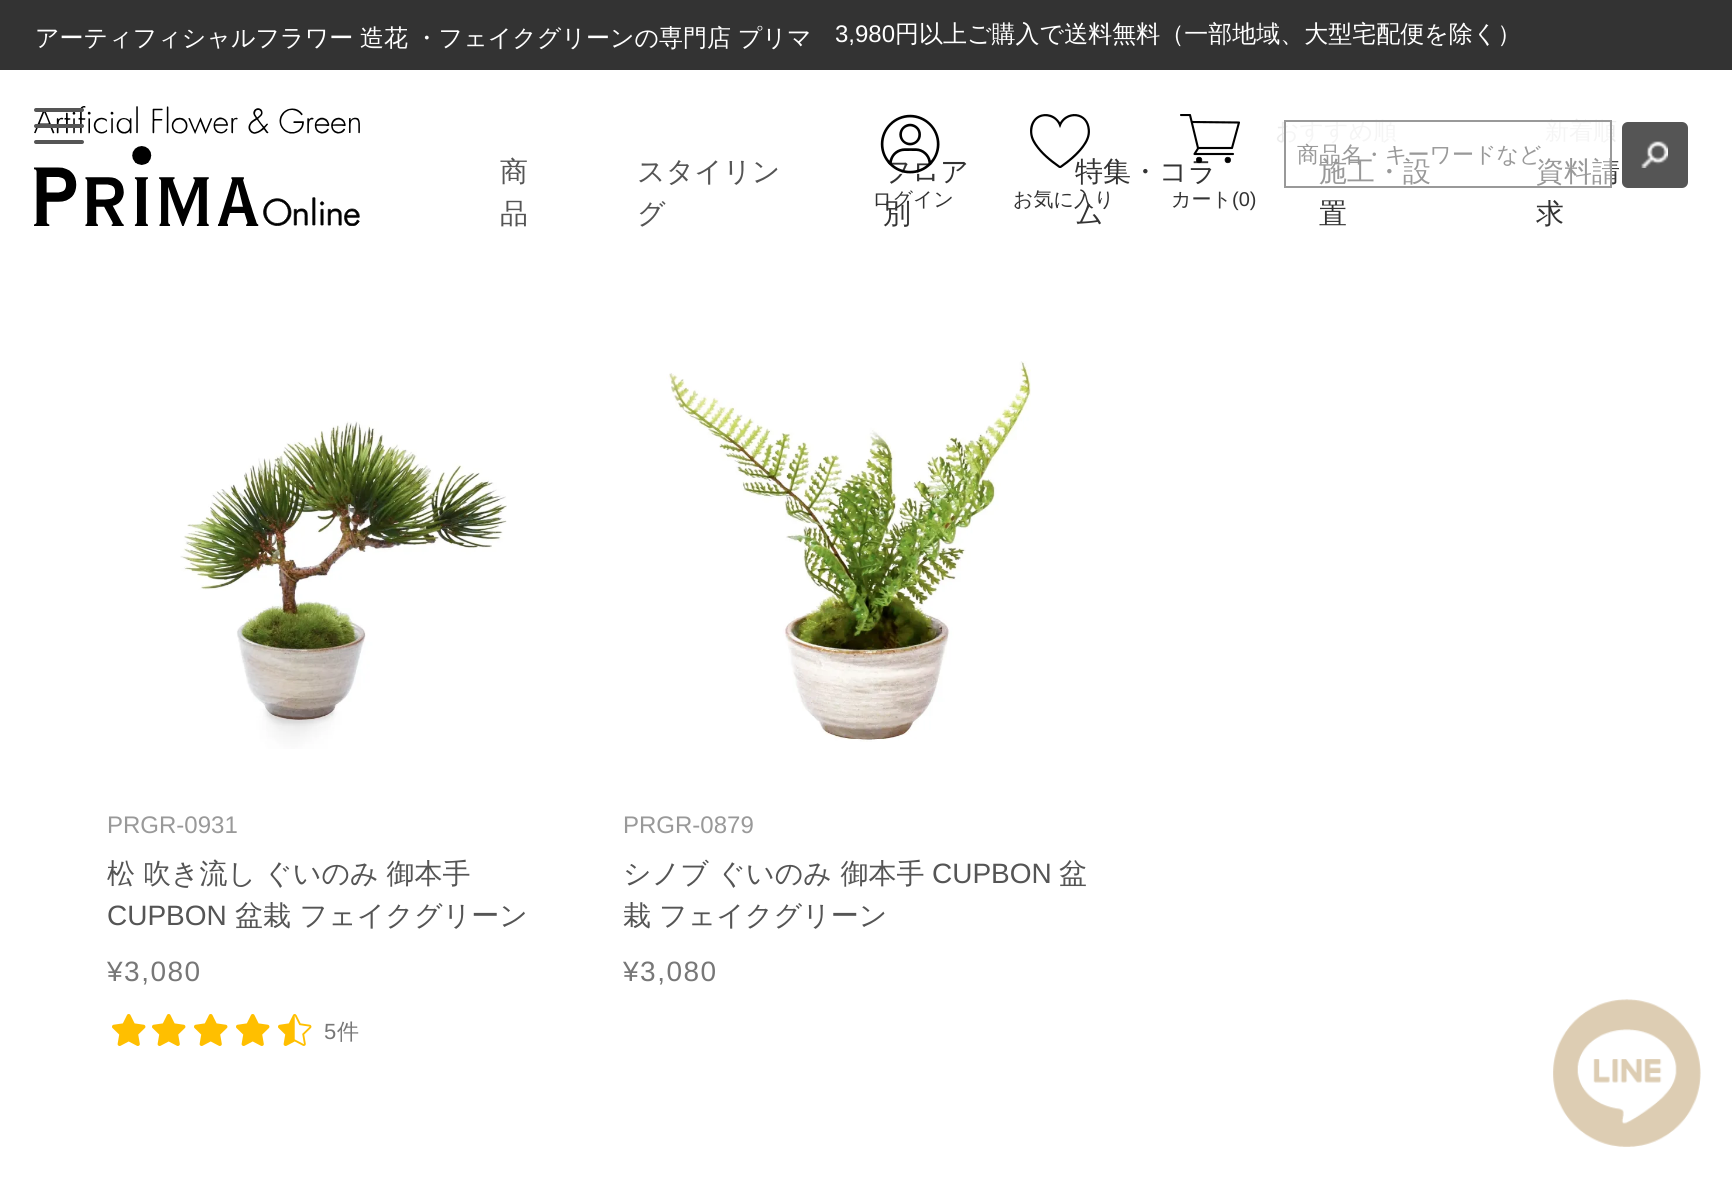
#include <cairo.h>
#include <math.h>
#include <stddef.h>

typedef struct { double x, y; const char *s; } line_t;

static void ink(cairo_t *ctx, unsigned color) {
    cairo_set_source_rgb(ctx, (color >> 16) / 255.0, (color >> 8 & 255) / 255.0, (color & 255) / 255.0);
}

static void write_spaced(cairo_t *ctx, double x, double y, const char *s, double letter, double word) {
    cairo_move_to(ctx, x, y);
    while (*s) {
        char ch[5] = {0};
        int n = 0;
        do ch[n++] = *s++; while ((*s & 0xC0) == 0x80);
        cairo_show_text(ctx, ch);
        cairo_rel_move_to(ctx, letter + word * (*ch == ' '), 0);
    }
}

static void round_path(cairo_t *ctx, double x, double y, double w, double h, double r) {
    cairo_new_sub_path(ctx);
    cairo_arc(ctx, x + w - r, y + h - r, r, 0, M_PI / 2);
    cairo_arc(ctx, x + r, y + h - r, r, M_PI / 2, M_PI);
    cairo_arc(ctx, x + r, y + r, r, M_PI, 1.5 * M_PI);
    cairo_arc(ctx, x + w - r, y + r, r, 1.5 * M_PI, 2 * M_PI);
    cairo_close_path(ctx);
}

static void paste(cairo_t *ctx, const char *path, double x, double y, double w, double h) {
    cairo_surface_t *image = cairo_image_surface_create_from_png(path);
    cairo_save(ctx);
    cairo_set_source_surface(ctx, image, x, y);
    cairo_rectangle(ctx, x, y, w, h);
    cairo_fill(ctx);
    cairo_restore(ctx);
    cairo_surface_destroy(image);
}

int main(void) {
    cairo_surface_t *surface = cairo_image_surface_create(CAIRO_FORMAT_RGB24, 1732, 1198);
    cairo_t *ctx = cairo_create(surface);
    cairo_font_options_t *options = cairo_font_options_create();
    cairo_font_options_set_hint_metrics(options, CAIRO_HINT_METRICS_OFF);
    cairo_font_options_set_hint_style(options, CAIRO_HINT_STYLE_NONE);
    cairo_set_font_options(ctx, options);
    cairo_set_miter_limit(ctx, 4);
    ink(ctx, 0xFFFFFF);
    cairo_paint(ctx);
    ink(ctx, 0x333333);
    cairo_rectangle(ctx, 0, 0, 1732, 70);
    cairo_fill(ctx);
    cairo_select_font_face(ctx, "WenQuanYi Zen Hei Medium", CAIRO_FONT_SLANT_NORMAL, CAIRO_FONT_WEIGHT_NORMAL);
    cairo_set_font_size(ctx, 24);
    ink(ctx, 0xFFFFFF);
    write_spaced(ctx, 35, 46, "アーティフィシャルフラワー 造花 ・フェイクグリーンの専門店 プリマ", 0, -0.5);
    cairo_select_font_face(ctx, "Liberation Sans", CAIRO_FONT_SLANT_NORMAL, CAIRO_FONT_WEIGHT_NORMAL);
    cairo_move_to(ctx, 835, 42);
    cairo_show_text(ctx, "3,980");
    cairo_select_font_face(ctx, "WenQuanYi Zen Hei Medium", CAIRO_FONT_SLANT_NORMAL, CAIRO_FONT_WEIGHT_NORMAL);
    cairo_move_to(ctx, 895, 42);
    cairo_show_text(ctx, "円以上ご購入で送料無料（一部地域、大型宅配便を除く）");
    paste(ctx, "media/1.png", 34, 106, 326, 120);
    ink(ctx, 0x555555);
    round_path(ctx, 34, 108, 50, 4, 2);
    cairo_fill(ctx);
    round_path(ctx, 34, 124, 50, 4, 2);
    cairo_fill(ctx);
    round_path(ctx, 34, 140, 50, 4, 2);
    cairo_fill(ctx);
    cairo_set_font_size(ctx, 28);
    ink(ctx, 0x333333);
    cairo_move_to(ctx, 1319, 181);
    cairo_show_text(ctx, "施工・設");
    cairo_move_to(ctx, 1536, 181);
    cairo_show_text(ctx, "資料請");
    cairo_set_font_size(ctx, 24);
    ink(ctx, 0xEBEBEB);
    cairo_move_to(ctx, 1275, 139);
    cairo_show_text(ctx, "おすすめ順");
    cairo_move_to(ctx, 1545, 139);
    cairo_show_text(ctx, "新着順");
    cairo_set_source_rgba(ctx, 1, 1, 1, 0.5);
    cairo_rectangle(ctx, 1285, 121, 326, 66);
    cairo_fill_preserve(ctx);
    ink(ctx, 0x999999);
    cairo_stroke(ctx);
    cairo_set_font_size(ctx, 22);
    cairo_move_to(ctx, 1297, 162);
    cairo_show_text(ctx, "商品名・キーワードなど");
    ink(ctx, 0x555555);
    round_path(ctx, 1622, 122, 66, 66, 6);
    cairo_fill(ctx);
    paste(ctx, "media/2.png", 1641, 141, 27, 27);
    cairo_set_font_size(ctx, 28);
    ink(ctx, 0x333333);
    cairo_move_to(ctx, 883, 181);
    cairo_show_text(ctx, "フロア");
    paste(ctx, "media/3.png", 880, 114, 60, 60);
    cairo_move_to(ctx, 883, 223);
    cairo_show_text(ctx, "別");
    cairo_set_font_size(ctx, 20);
    cairo_move_to(ctx, 872, 206);
    cairo_show_text(ctx, "ログイン");
    cairo_set_font_size(ctx, 28);
    cairo_move_to(ctx, 1075, 181);
    cairo_show_text(ctx, "特集・コラ");
    paste(ctx, "media/4.png", 1030, 114, 60, 54);
    cairo_set_font_size(ctx, 20);
    cairo_move_to(ctx, 1013, 206);
    cairo_show_text(ctx, "お気に入り");
    cairo_save(ctx);
    cairo_rectangle(ctx, 1180, 114, 60, 50);
    cairo_clip(ctx);
    cairo_new_path(ctx);
    cairo_move_to(ctx, 1192, 122);
    cairo_line_to(ctx, 1239, 122.5);
    cairo_line_to(ctx, 1232, 148);
    cairo_line_to(ctx, 1198, 148);
    cairo_line_to(ctx, 1190, 115);
    cairo_line_to(ctx, 1181, 115);
    cairo_move_to(ctx, 1198, 148.5);
    cairo_line_to(ctx, 1194.5, 154);
    cairo_line_to(ctx, 1233, 154);
    ink(ctx, 0x000000);
    cairo_set_line_width(ctx, 2.1);
    cairo_set_line_cap(ctx, CAIRO_LINE_CAP_ROUND);
    cairo_set_line_join(ctx, CAIRO_LINE_JOIN_ROUND);
    cairo_stroke(ctx);
    cairo_restore(ctx);
    ink(ctx, 0x000000);
    cairo_arc(ctx, 1199.1, 160, 2.8, 0, 2 * M_PI);
    cairo_fill_preserve(ctx);
    cairo_set_line_width(ctx, 0.7);
    cairo_stroke(ctx);
    cairo_arc(ctx, 1227.8, 160, 2.8, 0, 2 * M_PI);
    cairo_fill_preserve(ctx);
    cairo_stroke(ctx);
    ink(ctx, 0x333333);
    cairo_move_to(ctx, 1171, 206);
    cairo_show_text(ctx, "カート");
    cairo_select_font_face(ctx, "Liberation Sans", CAIRO_FONT_SLANT_NORMAL, CAIRO_FONT_WEIGHT_NORMAL);
    cairo_move_to(ctx, 1232, 206);
    cairo_show_text(ctx, "(0)");
    cairo_select_font_face(ctx, "WenQuanYi Zen Hei Medium", CAIRO_FONT_SLANT_NORMAL, CAIRO_FONT_WEIGHT_NORMAL);
    cairo_set_font_size(ctx, 28);
    ink(ctx, 0x555555);
    {
        static const line_t items[] = {
            {500, 181, "商"},
            {500, 223, "品"},
            {637, 181, "スタイリン"},
            {637, 223, "グ"},
        };
        for (size_t i = 0; i < sizeof items / sizeof *items; i++) {
            cairo_move_to(ctx, items[i].x, items[i].y);
            cairo_show_text(ctx, items[i].s);
        }
    }
    ink(ctx, 0x333333);
    {
        static const line_t items[] = {
            {1075, 223, "ム"},
            {1319, 223, "置"},
            {1536, 223, "求"},
        };
        for (size_t i = 0; i < sizeof items / sizeof *items; i++) {
            cairo_move_to(ctx, items[i].x, items[i].y);
            cairo_show_text(ctx, items[i].s);
        }
    }
    paste(ctx, "media/5.png", 180, 421, 327, 328);
    cairo_select_font_face(ctx, "Liberation Sans", CAIRO_FONT_SLANT_NORMAL, CAIRO_FONT_WEIGHT_NORMAL);
    cairo_set_font_size(ctx, 24);
    ink(ctx, 0x999999);
    cairo_move_to(ctx, 107, 833);
    cairo_show_text(ctx, "PRGR-0931");
    cairo_select_font_face(ctx, "WenQuanYi Zen Hei Medium", CAIRO_FONT_SLANT_NORMAL, CAIRO_FONT_WEIGHT_NORMAL);
    cairo_set_font_size(ctx, 28);
    ink(ctx, 0x555555);
    write_spaced(ctx, 107, 883, "松 吹き流し ぐいのみ 御本手", 0, -0.5);
    cairo_select_font_face(ctx, "Liberation Sans", CAIRO_FONT_SLANT_NORMAL, CAIRO_FONT_WEIGHT_NORMAL);
    cairo_move_to(ctx, 107, 925);
    cairo_show_text(ctx, "CUPBON");
    cairo_select_font_face(ctx, "WenQuanYi Zen Hei Medium", CAIRO_FONT_SLANT_NORMAL, CAIRO_FONT_WEIGHT_NORMAL);
    cairo_move_to(ctx, 235, 925);
    cairo_show_text(ctx, "盆栽 フェイクグリーン");
    cairo_select_font_face(ctx, "Liberation Sans", CAIRO_FONT_SLANT_NORMAL, CAIRO_FONT_WEIGHT_NORMAL);
    ink(ctx, 0x777777);
    write_spaced(ctx, 107, 981, "¥3,080", 1.5, 0);
    paste(ctx, "media/6.png", 112, 1014, 34, 32);
    paste(ctx, "media/6.png", 152, 1014, 34, 32);
    paste(ctx, "media/6.png", 194, 1014, 34, 32);
    paste(ctx, "media/6.png", 236, 1014, 34, 32);
    paste(ctx, "media/7.png", 278, 1014, 34, 32);
    cairo_set_font_size(ctx, 22);
    cairo_move_to(ctx, 324, 1039);
    cairo_show_text(ctx, "5");
    cairo_select_font_face(ctx, "WenQuanYi Zen Hei Medium", CAIRO_FONT_SLANT_NORMAL, CAIRO_FONT_WEIGHT_NORMAL);
    cairo_move_to(ctx, 337, 1039);
    cairo_show_text(ctx, "件");
    paste(ctx, "media/8.png", 666, 361, 365, 381);
    cairo_select_font_face(ctx, "Liberation Sans", CAIRO_FONT_SLANT_NORMAL, CAIRO_FONT_WEIGHT_NORMAL);
    cairo_set_font_size(ctx, 24);
    ink(ctx, 0x999999);
    cairo_move_to(ctx, 623, 833);
    cairo_show_text(ctx, "PRGR-0879");
    cairo_select_font_face(ctx, "WenQuanYi Zen Hei Medium", CAIRO_FONT_SLANT_NORMAL, CAIRO_FONT_WEIGHT_NORMAL);
    cairo_set_font_size(ctx, 28);
    ink(ctx, 0x555555);
    cairo_move_to(ctx, 623, 883);
    cairo_show_text(ctx, "シノブ ぐいのみ 御本手");
    cairo_select_font_face(ctx, "Liberation Sans", CAIRO_FONT_SLANT_NORMAL, CAIRO_FONT_WEIGHT_NORMAL);
    cairo_move_to(ctx, 932, 883);
    cairo_show_text(ctx, "CUPBON");
    cairo_select_font_face(ctx, "WenQuanYi Zen Hei Medium", CAIRO_FONT_SLANT_NORMAL, CAIRO_FONT_WEIGHT_NORMAL);
    cairo_move_to(ctx, 1059, 883);
    cairo_show_text(ctx, "盆");
    write_spaced(ctx, 623, 925, "栽 フェイクグリーン", 0, -0.5);
    cairo_select_font_face(ctx, "Liberation Sans", CAIRO_FONT_SLANT_NORMAL, CAIRO_FONT_WEIGHT_NORMAL);
    ink(ctx, 0x777777);
    write_spaced(ctx, 623, 981, "¥3,080", 1.5, 0);
    paste(ctx, "media/9.png", 1553, 999, 148, 148);
    cairo_surface_write_to_png(surface, "image.png");
    cairo_font_options_destroy(options);
    cairo_destroy(ctx);
    cairo_surface_destroy(surface);
    return 0;
}
